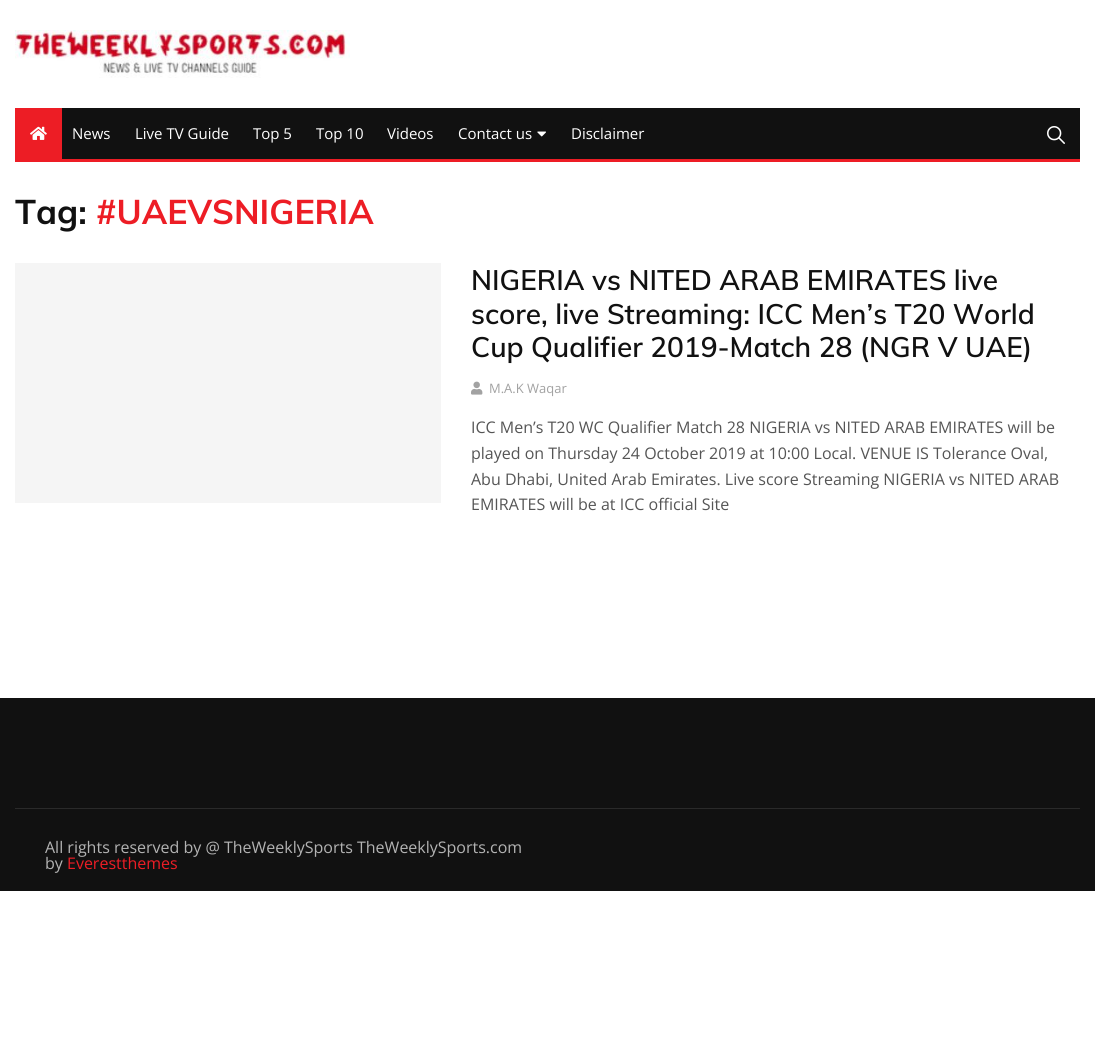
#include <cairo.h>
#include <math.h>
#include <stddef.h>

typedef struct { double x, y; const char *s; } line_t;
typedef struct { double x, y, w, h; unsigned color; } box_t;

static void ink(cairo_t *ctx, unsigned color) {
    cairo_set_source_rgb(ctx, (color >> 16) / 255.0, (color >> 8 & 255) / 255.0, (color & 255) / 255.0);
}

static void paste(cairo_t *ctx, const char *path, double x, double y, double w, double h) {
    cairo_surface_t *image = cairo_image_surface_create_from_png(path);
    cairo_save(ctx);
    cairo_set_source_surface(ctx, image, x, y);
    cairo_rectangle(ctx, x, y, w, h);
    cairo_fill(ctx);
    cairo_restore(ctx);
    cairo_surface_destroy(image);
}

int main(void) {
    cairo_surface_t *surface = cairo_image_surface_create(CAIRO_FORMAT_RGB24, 1095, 1062);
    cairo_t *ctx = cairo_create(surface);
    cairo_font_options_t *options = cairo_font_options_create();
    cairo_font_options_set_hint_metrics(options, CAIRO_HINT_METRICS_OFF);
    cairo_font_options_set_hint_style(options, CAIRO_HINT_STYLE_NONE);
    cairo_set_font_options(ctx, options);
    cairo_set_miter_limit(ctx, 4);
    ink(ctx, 0xFFFFFF);
    cairo_paint(ctx);
    paste(ctx, "media/1.png", 15, 30, 335, 48);
    {
        static const box_t items[] = {
            {62, 108, 1018, 51, 0x111111},
            {15, 159, 1065, 3, 0xED1D25},
            {15, 108, 47, 51, 0xED1D25},
        };
        for (size_t i = 0; i < sizeof items / sizeof *items; i++) {
            ink(ctx, items[i].color);
            cairo_rectangle(ctx, items[i].x, items[i].y, items[i].w, items[i].h);
            cairo_fill(ctx);
        }
    }
    paste(ctx, "media/2.png", 30, 126, 17, 14);
    cairo_select_font_face(ctx, "Open Sans", CAIRO_FONT_SLANT_NORMAL, CAIRO_FONT_WEIGHT_NORMAL);
    cairo_set_font_size(ctx, 15);
    ink(ctx, 0xFFFFFF);
    {
        static const line_t items[] = {
            {72, 139, "News"},
            {135, 139, "Live TV Guide"},
            {253, 139, "Top 5"},
            {316, 139, "Top 10"},
            {387, 139, "Videos"},
            {458, 139, "Contact us"},
        };
        for (size_t i = 0; i < sizeof items / sizeof *items; i++) {
            cairo_move_to(ctx, items[i].x, items[i].y);
            cairo_show_text(ctx, items[i].s);
        }
    }
    paste(ctx, "media/3.png", 537, 131, 9, 6);
    cairo_move_to(ctx, 571, 139);
    cairo_show_text(ctx, "Disclaimer");
    paste(ctx, "media/4.png", 1047, 126, 18, 18);
    cairo_select_font_face(ctx, "Muli", CAIRO_FONT_SLANT_NORMAL, CAIRO_FONT_WEIGHT_BOLD);
    cairo_set_font_size(ctx, 34);
    ink(ctx, 0x111111);
    cairo_move_to(ctx, 15, 224);
    cairo_show_text(ctx, "Tag:");
    ink(ctx, 0xED1D25);
    cairo_move_to(ctx, 96, 224);
    cairo_show_text(ctx, "#UAEVSNIGERIA");
    ink(ctx, 0xF5F5F5);
    cairo_rectangle(ctx, 15, 263, 426, 240);
    cairo_fill(ctx);
    cairo_select_font_face(ctx, "Muli SemiBold", CAIRO_FONT_SLANT_NORMAL, CAIRO_FONT_WEIGHT_NORMAL);
    cairo_set_font_size(ctx, 28);
    ink(ctx, 0x111111);
    {
        static const line_t items[] = {
            {471, 290, "NIGERIA vs NITED ARAB EMIRATES live"},
            {471, 324, "score, live Streaming: ICC Men’s T20 World"},
            {471, 357, "Cup Qualifier 2019-Match 28 (NGR V UAE)"},
        };
        for (size_t i = 0; i < sizeof items / sizeof *items; i++) {
            cairo_move_to(ctx, items[i].x, items[i].y);
            cairo_show_text(ctx, items[i].s);
        }
    }
    paste(ctx, "media/5.png", 471, 381, 12, 14);
    cairo_select_font_face(ctx, "Open Sans", CAIRO_FONT_SLANT_NORMAL, CAIRO_FONT_WEIGHT_NORMAL);
    cairo_set_font_size(ctx, 13);
    ink(ctx, 0xA2A2A2);
    cairo_move_to(ctx, 489, 393);
    cairo_show_text(ctx, "M.A.K Waqar");
    cairo_set_font_size(ctx, 16);
    ink(ctx, 0x555555);
    {
        static const line_t items[] = {
            {471, 433, "ICC Men’s T20 WC Qualifier Match 28 NIGERIA vs NITED ARAB EMIRATES will be"},
            {471, 459, "played on Thursday 24 October 2019 at 10:00 Local. VENUE IS Tolerance Oval,"},
            {471, 485, "Abu Dhabi, United Arab Emirates. Live score Streaming NIGERIA vs NITED ARAB"},
            {471, 510, "EMIRATES will be at ICC official Site"},
        };
        for (size_t i = 0; i < sizeof items / sizeof *items; i++) {
            cairo_move_to(ctx, items[i].x, items[i].y);
            cairo_show_text(ctx, items[i].s);
        }
    }
    ink(ctx, 0x111111);
    cairo_rectangle(ctx, 0, 698, 1095, 193);
    cairo_fill(ctx);
    ink(ctx, 0x2A2A2A);
    cairo_rectangle(ctx, 15, 808, 1065, 1);
    cairo_fill(ctx);
    ink(ctx, 0xB3B3B3);
    cairo_move_to(ctx, 45, 853);
    cairo_show_text(ctx, "All rights reserved by @ TheWeeklySports TheWeeklySports.com");
    cairo_move_to(ctx, 45, 869);
    cairo_show_text(ctx, "by");
    ink(ctx, 0xED1D25);
    cairo_move_to(ctx, 67, 869);
    cairo_show_text(ctx, "Everestthemes");
    cairo_surface_write_to_png(surface, "image.png");
    cairo_font_options_destroy(options);
    cairo_destroy(ctx);
    cairo_surface_destroy(surface);
    return 0;
}
